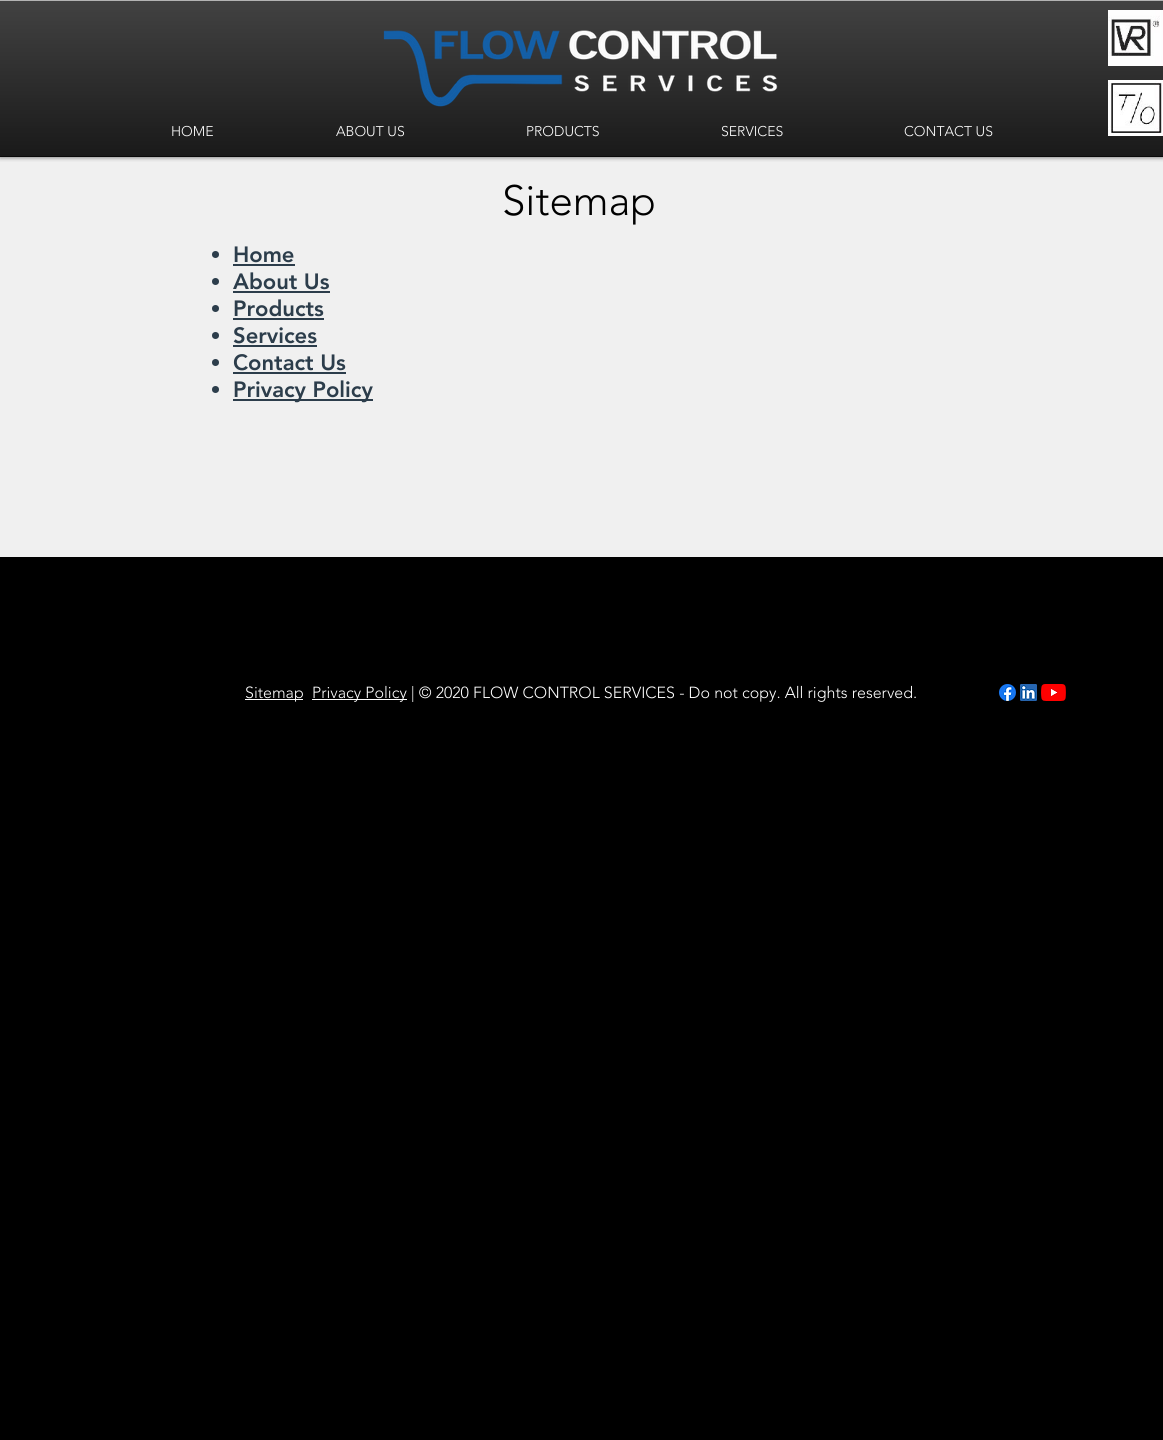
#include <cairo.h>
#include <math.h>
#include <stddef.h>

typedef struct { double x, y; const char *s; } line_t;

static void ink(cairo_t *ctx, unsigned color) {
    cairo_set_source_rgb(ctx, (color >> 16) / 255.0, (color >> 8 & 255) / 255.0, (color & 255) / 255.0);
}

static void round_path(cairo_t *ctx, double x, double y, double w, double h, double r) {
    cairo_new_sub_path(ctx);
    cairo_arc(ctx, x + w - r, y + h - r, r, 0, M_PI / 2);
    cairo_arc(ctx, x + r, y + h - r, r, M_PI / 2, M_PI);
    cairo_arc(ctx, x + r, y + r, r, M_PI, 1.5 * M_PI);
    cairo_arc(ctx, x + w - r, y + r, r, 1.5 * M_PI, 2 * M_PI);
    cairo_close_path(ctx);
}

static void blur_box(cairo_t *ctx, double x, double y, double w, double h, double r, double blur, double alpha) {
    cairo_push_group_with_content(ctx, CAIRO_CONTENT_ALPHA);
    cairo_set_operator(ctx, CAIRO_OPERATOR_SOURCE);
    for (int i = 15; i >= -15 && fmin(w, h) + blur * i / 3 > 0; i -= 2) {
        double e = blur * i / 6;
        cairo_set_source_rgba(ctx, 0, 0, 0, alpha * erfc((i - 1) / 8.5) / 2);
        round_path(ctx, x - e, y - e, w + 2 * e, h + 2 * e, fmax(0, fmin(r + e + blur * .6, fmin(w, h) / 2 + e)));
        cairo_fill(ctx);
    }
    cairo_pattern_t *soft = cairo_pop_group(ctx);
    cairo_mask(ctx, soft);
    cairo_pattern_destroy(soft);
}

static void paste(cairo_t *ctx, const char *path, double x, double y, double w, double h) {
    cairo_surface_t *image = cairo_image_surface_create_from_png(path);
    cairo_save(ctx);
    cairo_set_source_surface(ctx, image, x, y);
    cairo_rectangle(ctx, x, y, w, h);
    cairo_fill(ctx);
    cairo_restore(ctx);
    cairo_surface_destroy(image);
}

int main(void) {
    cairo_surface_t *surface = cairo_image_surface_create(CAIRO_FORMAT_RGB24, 1163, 1440);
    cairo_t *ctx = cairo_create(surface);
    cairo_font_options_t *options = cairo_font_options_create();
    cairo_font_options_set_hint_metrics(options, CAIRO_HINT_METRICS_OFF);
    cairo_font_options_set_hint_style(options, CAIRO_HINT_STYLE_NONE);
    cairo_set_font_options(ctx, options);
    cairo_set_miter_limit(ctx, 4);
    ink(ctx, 0x000000);
    cairo_paint(ctx);
    ink(ctx, 0xF0F0F0);
    cairo_rectangle(ctx, 0, 157, 1163, 400);
    cairo_fill(ctx);
    cairo_save(ctx);
    cairo_rectangle(ctx, 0, 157, 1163, 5);
    cairo_clip(ctx);
    ink(ctx, 0x000000);
    blur_box(ctx, 0, 0, 1163, 157, 0, 2.5, 0.6);
    cairo_restore(ctx);
    paste(ctx, "media/3.png", 0, 1, 1163, 155);
    paste(ctx, "media/1.png", 1108, 10, 55, 56);
    paste(ctx, "media/2.png", 1108, 80, 55, 56);
    ink(ctx, 0x0A0A0A);
    cairo_rectangle(ctx, 0, 156, 1163, 1);
    cairo_fill(ctx);
    ink(ctx, 0xB3B3B3);
    cairo_rectangle(ctx, 0, 0, 1163, 1);
    cairo_fill(ctx);
    paste(ctx, "media/4.png", 383, 30, 395, 77);
    cairo_select_font_face(ctx, "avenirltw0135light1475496 Light", CAIRO_FONT_SLANT_NORMAL, CAIRO_FONT_WEIGHT_NORMAL);
    cairo_set_font_size(ctx, 14);
    ink(ctx, 0xFFFFFF);
    {
        static const line_t items[] = {
            {171, 136, "HOME"},
            {336, 136, "ABOUT US"},
            {526, 136, "PRODUCTS"},
            {721, 136, "SERVICES"},
            {904, 136, "CONTACT US"},
        };
        for (size_t i = 0; i < sizeof items / sizeof *items; i++) {
            cairo_move_to(ctx, items[i].x, items[i].y);
            cairo_show_text(ctx, items[i].s);
        }
    }
    cairo_set_font_size(ctx, 42);
    ink(ctx, 0x000000);
    cairo_move_to(ctx, 502, 215);
    cairo_show_text(ctx, "Sitemap");
    ink(ctx, 0x2C3D4B);
    cairo_new_path(ctx);
    cairo_arc(ctx, 215.5, 254.5, 3.5, 0, 2 * M_PI);
    cairo_fill(ctx);
    cairo_select_font_face(ctx, "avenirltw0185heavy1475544 Black", CAIRO_FONT_SLANT_NORMAL, CAIRO_FONT_WEIGHT_NORMAL);
    cairo_set_font_size(ctx, 22);
    cairo_move_to(ctx, 233, 262);
    cairo_show_text(ctx, "Home");
    cairo_rectangle(ctx, 233, 264, 62, 2);
    cairo_fill(ctx);
    cairo_arc(ctx, 215.5, 281.5, 3.5, 0, 2 * M_PI);
    cairo_fill(ctx);
    cairo_move_to(ctx, 233, 289);
    cairo_show_text(ctx, "About Us");
    cairo_rectangle(ctx, 233, 291, 97, 2);
    cairo_fill(ctx);
    cairo_arc(ctx, 215.5, 308.5, 3.5, 0, 2 * M_PI);
    cairo_fill(ctx);
    cairo_move_to(ctx, 233, 316);
    cairo_show_text(ctx, "Products");
    cairo_rectangle(ctx, 233, 318, 91, 2);
    cairo_fill(ctx);
    cairo_arc(ctx, 215.5, 335.5, 3.5, 0, 2 * M_PI);
    cairo_fill(ctx);
    cairo_move_to(ctx, 233, 343);
    cairo_show_text(ctx, "Services");
    cairo_rectangle(ctx, 233, 345, 84, 2);
    cairo_fill(ctx);
    cairo_arc(ctx, 215.5, 362.5, 3.5, 0, 2 * M_PI);
    cairo_fill(ctx);
    cairo_move_to(ctx, 233, 370);
    cairo_show_text(ctx, "Contact Us");
    cairo_rectangle(ctx, 233, 372, 113, 2);
    cairo_fill(ctx);
    cairo_arc(ctx, 215.5, 389.5, 3.5, 0, 2 * M_PI);
    cairo_fill(ctx);
    cairo_rectangle(ctx, 233, 399, 140, 2);
    cairo_fill(ctx);
    cairo_move_to(ctx, 233, 397);
    cairo_show_text(ctx, "Privacy Policy");
    ink(ctx, 0xFFFFFF);
    cairo_rectangle(ctx, 245, 699, 58, 1);
    cairo_fill(ctx);
    cairo_select_font_face(ctx, "avenirltw0135light1475496 Light", CAIRO_FONT_SLANT_NORMAL, CAIRO_FONT_WEIGHT_NORMAL);
    cairo_set_font_size(ctx, 16);
    cairo_move_to(ctx, 245, 698);
    cairo_show_text(ctx, "Sitemap");
    cairo_rectangle(ctx, 312, 699, 95, 1);
    cairo_fill(ctx);
    cairo_move_to(ctx, 312, 698);
    cairo_show_text(ctx, "Privacy Policy | © 2020 FLOW CONTROL SERVICES - Do not copy. All rights reserved.");
    paste(ctx, "media/5.png", 999, 684, 17, 17);
    paste(ctx, "media/6.png", 1020, 684, 17, 17);
    paste(ctx, "media/7.png", 1041, 684, 25, 17);
    cairo_surface_write_to_png(surface, "image.png");
    cairo_font_options_destroy(options);
    cairo_destroy(ctx);
    cairo_surface_destroy(surface);
    return 0;
}
